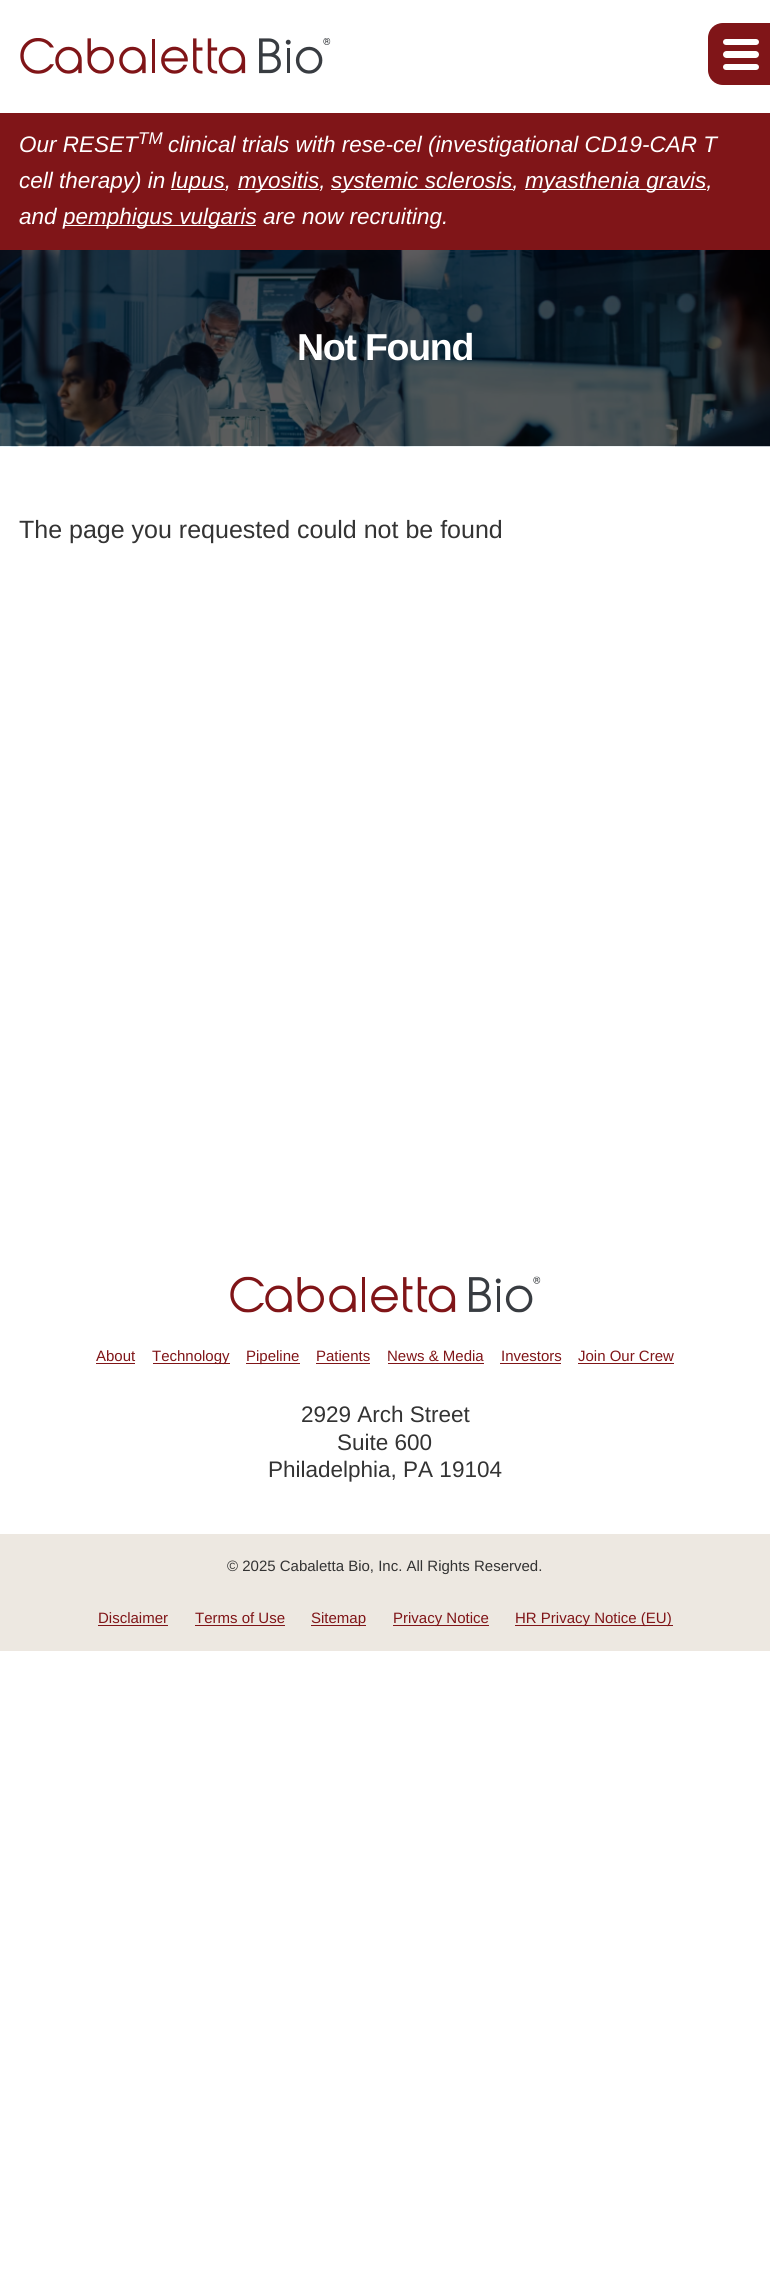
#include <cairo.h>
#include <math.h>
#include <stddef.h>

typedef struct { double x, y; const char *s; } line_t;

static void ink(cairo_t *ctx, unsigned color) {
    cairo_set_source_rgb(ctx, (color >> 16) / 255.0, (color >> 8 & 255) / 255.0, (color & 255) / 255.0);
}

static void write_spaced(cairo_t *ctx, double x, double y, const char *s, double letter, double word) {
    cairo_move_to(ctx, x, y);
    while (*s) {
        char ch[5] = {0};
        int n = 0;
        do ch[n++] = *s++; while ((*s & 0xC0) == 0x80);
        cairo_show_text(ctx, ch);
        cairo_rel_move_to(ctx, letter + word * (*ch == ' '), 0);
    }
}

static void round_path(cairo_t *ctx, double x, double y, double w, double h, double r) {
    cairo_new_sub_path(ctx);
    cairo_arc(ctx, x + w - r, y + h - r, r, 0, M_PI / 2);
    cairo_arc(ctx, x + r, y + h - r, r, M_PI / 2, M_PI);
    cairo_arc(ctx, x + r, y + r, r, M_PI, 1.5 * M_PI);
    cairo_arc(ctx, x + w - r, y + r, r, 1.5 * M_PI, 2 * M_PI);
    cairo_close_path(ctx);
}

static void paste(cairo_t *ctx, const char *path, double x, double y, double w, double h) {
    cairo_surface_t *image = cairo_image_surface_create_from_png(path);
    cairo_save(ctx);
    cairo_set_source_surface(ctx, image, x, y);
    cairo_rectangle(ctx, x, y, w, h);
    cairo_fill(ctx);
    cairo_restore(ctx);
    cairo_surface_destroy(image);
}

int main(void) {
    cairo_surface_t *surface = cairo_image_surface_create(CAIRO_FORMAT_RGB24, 770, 2286);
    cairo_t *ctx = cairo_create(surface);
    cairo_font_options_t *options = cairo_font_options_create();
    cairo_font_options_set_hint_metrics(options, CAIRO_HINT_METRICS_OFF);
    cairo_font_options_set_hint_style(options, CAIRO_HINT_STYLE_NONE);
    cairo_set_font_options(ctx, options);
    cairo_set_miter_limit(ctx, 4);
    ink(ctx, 0xFFFFFF);
    cairo_paint(ctx);
    paste(ctx, "media/1.png", 20, 38, 311, 36);
    ink(ctx, 0x801518);
    cairo_new_path(ctx);
    cairo_move_to(ctx, 723, 23);
    cairo_line_to(ctx, 770, 23);
    cairo_line_to(ctx, 770, 85);
    cairo_line_to(ctx, 723, 85);
    cairo_curve_to(ctx, 714.5, 85, 708, 78.5, 708, 70);
    cairo_line_to(ctx, 708, 38);
    cairo_curve_to(ctx, 708, 29.5, 714.5, 23, 723, 23);
    cairo_close_path(ctx);
    cairo_fill(ctx);
    ink(ctx, 0xFFFFFF);
    round_path(ctx, 723, 39, 36, 6, 3);
    cairo_fill(ctx);
    round_path(ctx, 723, 51, 36, 7, 3.5);
    cairo_fill(ctx);
    round_path(ctx, 723, 64, 36, 6, 3);
    cairo_fill(ctx);
    ink(ctx, 0x801518);
    cairo_rectangle(ctx, 0, 113, 770, 137);
    cairo_fill(ctx);
    cairo_select_font_face(ctx, "Liberation Sans", CAIRO_FONT_SLANT_ITALIC, CAIRO_FONT_WEIGHT_NORMAL);
    cairo_set_font_size(ctx, 22.5);
    ink(ctx, 0xFFFFFF);
    cairo_move_to(ctx, 19, 152);
    cairo_show_text(ctx, "Our RESET");
    cairo_set_font_size(ctx, 17);
    cairo_move_to(ctx, 138, 144);
    cairo_show_text(ctx, "TM");
    cairo_set_font_size(ctx, 22.5);
    cairo_move_to(ctx, 168, 152);
    cairo_show_text(ctx, "clinical trials with rese-cel (investigational CD19-CAR T");
    cairo_move_to(ctx, 19, 188);
    cairo_show_text(ctx, "cell therapy) in");
    cairo_rectangle(ctx, 171, 189, 54, 1);
    cairo_fill(ctx);
    cairo_move_to(ctx, 171, 188);
    cairo_show_text(ctx, "lupus,");
    cairo_rectangle(ctx, 238, 189, 81, 1);
    cairo_fill(ctx);
    cairo_move_to(ctx, 238, 188);
    cairo_show_text(ctx, "myositis,");
    cairo_rectangle(ctx, 331, 189, 182, 1);
    cairo_fill(ctx);
    cairo_move_to(ctx, 331, 188);
    cairo_show_text(ctx, "systemic sclerosis,");
    cairo_rectangle(ctx, 525, 189, 181, 1);
    cairo_fill(ctx);
    cairo_move_to(ctx, 525, 188);
    cairo_show_text(ctx, "myasthenia gravis,");
    cairo_move_to(ctx, 19, 224);
    cairo_show_text(ctx, "and");
    cairo_rectangle(ctx, 63, 225, 193, 1);
    cairo_fill(ctx);
    cairo_move_to(ctx, 63, 224);
    cairo_show_text(ctx, "pemphigus vulgaris are now recruiting.");
    paste(ctx, "media/2.png", 0, 250, 770, 197);
    cairo_select_font_face(ctx, "Liberation Sans", CAIRO_FONT_SLANT_NORMAL, CAIRO_FONT_WEIGHT_BOLD);
    cairo_set_font_size(ctx, 37.5);
    write_spaced(ctx, 297, 360, "Not Found", -1.25, 0);
    cairo_select_font_face(ctx, "Liberation Sans", CAIRO_FONT_SLANT_NORMAL, CAIRO_FONT_WEIGHT_NORMAL);
    cairo_set_font_size(ctx, 25);
    ink(ctx, 0x333333);
    cairo_move_to(ctx, 19, 538);
    cairo_show_text(ctx, "The page you requested could not be found");
    paste(ctx, "media/3.png", 230, 1276, 311, 37);
    cairo_set_font_size(ctx, 15);
    ink(ctx, 0x801518);
    cairo_move_to(ctx, 96, 1361);
    cairo_show_text(ctx, "About");
    cairo_rectangle(ctx, 96, 1363, 39, 1);
    cairo_fill(ctx);
    cairo_rectangle(ctx, 153, 1363, 77, 1);
    cairo_fill(ctx);
    cairo_move_to(ctx, 152, 1361);
    cairo_show_text(ctx, "Technology");
    cairo_rectangle(ctx, 246, 1363, 54, 1);
    cairo_fill(ctx);
    cairo_move_to(ctx, 246, 1361);
    cairo_show_text(ctx, "Pipeline");
    cairo_move_to(ctx, 316, 1361);
    cairo_show_text(ctx, "Patients");
    cairo_rectangle(ctx, 316, 1363, 54, 1);
    cairo_fill(ctx);
    cairo_move_to(ctx, 387, 1361);
    cairo_show_text(ctx, "News & Media");
    cairo_rectangle(ctx, 388, 1363, 96, 1);
    cairo_fill(ctx);
    cairo_move_to(ctx, 501, 1361);
    cairo_show_text(ctx, "Investors");
    cairo_rectangle(ctx, 500, 1363, 61, 1);
    cairo_fill(ctx);
    cairo_move_to(ctx, 578, 1361);
    cairo_show_text(ctx, "Join Our Crew");
    cairo_rectangle(ctx, 578, 1363, 96, 1);
    cairo_fill(ctx);
    cairo_set_font_size(ctx, 22.5);
    ink(ctx, 0x333333);
    {
        static const line_t items[] = {
            {301, 1422, "2929 Arch Street"},
            {337, 1450, "Suite 600"},
            {268, 1477, "Philadelphia, PA 19104"},
        };
        for (size_t i = 0; i < sizeof items / sizeof *items; i++) {
            cairo_move_to(ctx, items[i].x, items[i].y);
            cairo_show_text(ctx, items[i].s);
        }
    }
    ink(ctx, 0xEDE8E1);
    cairo_rectangle(ctx, 0, 1534, 770, 117);
    cairo_fill(ctx);
    cairo_set_font_size(ctx, 15);
    ink(ctx, 0x333333);
    cairo_move_to(ctx, 227, 1571);
    cairo_show_text(ctx, "© 2025 Cabaletta Bio, Inc. All Rights Reserved.");
    ink(ctx, 0x801518);
    cairo_move_to(ctx, 98, 1623);
    cairo_show_text(ctx, "Disclaimer");
    cairo_rectangle(ctx, 98, 1625, 70, 1);
    cairo_fill(ctx);
    cairo_move_to(ctx, 195, 1623);
    cairo_show_text(ctx, "Terms of Use");
    cairo_rectangle(ctx, 195, 1625, 90, 1);
    cairo_fill(ctx);
    cairo_rectangle(ctx, 311, 1625, 55, 1);
    cairo_fill(ctx);
    cairo_move_to(ctx, 311, 1623);
    cairo_show_text(ctx, "Sitemap");
    cairo_rectangle(ctx, 393, 1625, 96, 1);
    cairo_fill(ctx);
    cairo_move_to(ctx, 393, 1623);
    cairo_show_text(ctx, "Privacy Notice");
    cairo_rectangle(ctx, 515, 1625, 158, 1);
    cairo_fill(ctx);
    cairo_move_to(ctx, 515, 1623);
    cairo_show_text(ctx, "HR Privacy Notice (EU)");
    cairo_surface_write_to_png(surface, "image.png");
    cairo_font_options_destroy(options);
    cairo_destroy(ctx);
    cairo_surface_destroy(surface);
    return 0;
}
